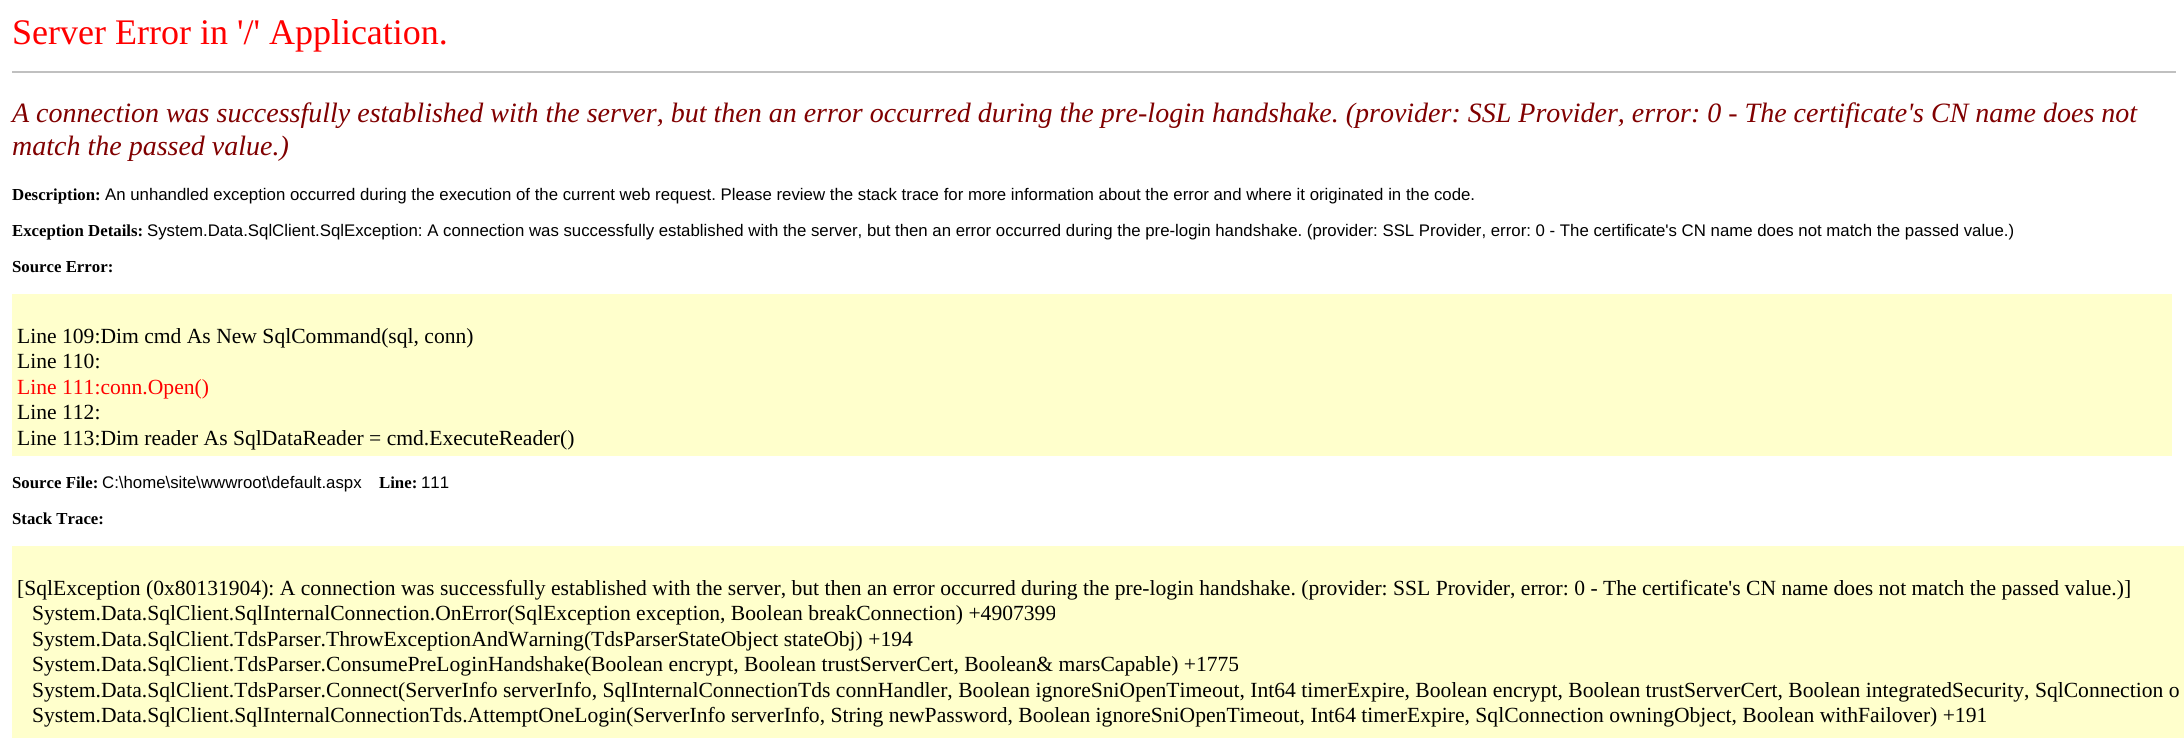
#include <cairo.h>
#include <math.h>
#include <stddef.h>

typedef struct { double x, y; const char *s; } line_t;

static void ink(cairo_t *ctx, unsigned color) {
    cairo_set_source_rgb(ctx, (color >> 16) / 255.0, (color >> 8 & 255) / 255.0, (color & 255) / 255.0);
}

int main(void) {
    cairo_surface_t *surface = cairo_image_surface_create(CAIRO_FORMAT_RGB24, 2184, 738);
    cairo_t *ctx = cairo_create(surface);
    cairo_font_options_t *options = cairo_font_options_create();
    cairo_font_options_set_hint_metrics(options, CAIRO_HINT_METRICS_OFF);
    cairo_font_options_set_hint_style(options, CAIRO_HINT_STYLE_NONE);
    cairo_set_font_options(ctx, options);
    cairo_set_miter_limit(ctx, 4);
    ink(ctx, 0xFFFFFF);
    cairo_paint(ctx);
    cairo_select_font_face(ctx, "Liberation Serif", CAIRO_FONT_SLANT_NORMAL, CAIRO_FONT_WEIGHT_NORMAL);
    cairo_set_font_size(ctx, 36);
    ink(ctx, 0xFF0000);
    cairo_move_to(ctx, 12, 44);
    cairo_show_text(ctx, "Server Error in '/' Application.");
    ink(ctx, 0xC0C0C0);
    cairo_rectangle(ctx, 12, 71, 2164, 2);
    cairo_fill(ctx);
    cairo_select_font_face(ctx, "Liberation Serif", CAIRO_FONT_SLANT_ITALIC, CAIRO_FONT_WEIGHT_NORMAL);
    cairo_set_font_size(ctx, 28);
    ink(ctx, 0x800000);
    cairo_move_to(ctx, 12, 122);
    cairo_show_text(ctx, "A connection was successfully established with the server, but then an error occurred during the pre-login handshake. (provider: SSL Provider, error: 0 - The certificate's CN name does not");
    cairo_move_to(ctx, 12, 155);
    cairo_show_text(ctx, "match the passed value.)");
    cairo_select_font_face(ctx, "Liberation Serif", CAIRO_FONT_SLANT_NORMAL, CAIRO_FONT_WEIGHT_BOLD);
    cairo_set_font_size(ctx, 16.8);
    ink(ctx, 0x000000);
    cairo_move_to(ctx, 12, 200);
    cairo_show_text(ctx, "Description:");
    cairo_select_font_face(ctx, "Liberation Sans", CAIRO_FONT_SLANT_NORMAL, CAIRO_FONT_WEIGHT_NORMAL);
    cairo_move_to(ctx, 105, 200);
    cairo_show_text(ctx, "An unhandled exception occurred during the execution of the current web request. Please review the stack trace for more information about the error and where it originated in the code.");
    cairo_select_font_face(ctx, "Liberation Serif", CAIRO_FONT_SLANT_NORMAL, CAIRO_FONT_WEIGHT_BOLD);
    cairo_move_to(ctx, 12, 236);
    cairo_show_text(ctx, "Exception Details:");
    cairo_select_font_face(ctx, "Liberation Sans", CAIRO_FONT_SLANT_NORMAL, CAIRO_FONT_WEIGHT_NORMAL);
    cairo_move_to(ctx, 147, 236);
    cairo_show_text(ctx, "System.Data.SqlClient.SqlException: A connection was successfully established with the server, but then an error occurred during the pre-login handshake. (provider: SSL Provider, error: 0 - The certificate's CN name does not match the passed value.)");
    cairo_select_font_face(ctx, "Liberation Serif", CAIRO_FONT_SLANT_NORMAL, CAIRO_FONT_WEIGHT_BOLD);
    cairo_move_to(ctx, 12, 272);
    cairo_show_text(ctx, "Source Error:");
    ink(ctx, 0xFFFFCC);
    cairo_rectangle(ctx, 12, 294, 2160, 162);
    cairo_fill(ctx);
    cairo_select_font_face(ctx, "Liberation Serif", CAIRO_FONT_SLANT_NORMAL, CAIRO_FONT_WEIGHT_NORMAL);
    cairo_set_font_size(ctx, 21.6);
    ink(ctx, 0x000000);
    cairo_move_to(ctx, 17, 343);
    cairo_show_text(ctx, "Line 109:Dim cmd As New SqlCommand(sql, conn)");
    cairo_move_to(ctx, 17, 368);
    cairo_show_text(ctx, "Line 110:");
    ink(ctx, 0xFF0000);
    cairo_move_to(ctx, 17, 394);
    cairo_show_text(ctx, "Line 111:conn.Open()");
    ink(ctx, 0x000000);
    cairo_move_to(ctx, 17, 419);
    cairo_show_text(ctx, "Line 112:");
    cairo_move_to(ctx, 17, 445);
    cairo_show_text(ctx, "Line 113:Dim reader As SqlDataReader = cmd.ExecuteReader()");
    cairo_select_font_face(ctx, "Liberation Serif", CAIRO_FONT_SLANT_NORMAL, CAIRO_FONT_WEIGHT_BOLD);
    cairo_set_font_size(ctx, 16.8);
    cairo_move_to(ctx, 12, 488);
    cairo_show_text(ctx, "Source File:");
    cairo_select_font_face(ctx, "Liberation Sans", CAIRO_FONT_SLANT_NORMAL, CAIRO_FONT_WEIGHT_NORMAL);
    cairo_move_to(ctx, 102, 488);
    cairo_show_text(ctx, "C:\\home\\site\\wwwroot\\default.aspx");
    cairo_select_font_face(ctx, "Liberation Serif", CAIRO_FONT_SLANT_NORMAL, CAIRO_FONT_WEIGHT_BOLD);
    cairo_move_to(ctx, 379, 488);
    cairo_show_text(ctx, "Line:");
    cairo_select_font_face(ctx, "Liberation Sans", CAIRO_FONT_SLANT_NORMAL, CAIRO_FONT_WEIGHT_NORMAL);
    cairo_move_to(ctx, 421, 488);
    cairo_show_text(ctx, "111");
    cairo_select_font_face(ctx, "Liberation Serif", CAIRO_FONT_SLANT_NORMAL, CAIRO_FONT_WEIGHT_BOLD);
    cairo_move_to(ctx, 12, 524);
    cairo_show_text(ctx, "Stack Trace:");
    ink(ctx, 0xFFFFCC);
    cairo_rectangle(ctx, 12, 546, 2172, 192);
    cairo_fill(ctx);
    cairo_select_font_face(ctx, "Liberation Serif", CAIRO_FONT_SLANT_NORMAL, CAIRO_FONT_WEIGHT_NORMAL);
    cairo_set_font_size(ctx, 21.6);
    ink(ctx, 0x000000);
    {
        static const line_t items[] = {
            {17, 595, "[SqlException (0x80131904): A connection was successfully established with the server, but then an error occurred during the pre-login handshake. (provider: SSL Provider, error: 0 - The certificate's CN name does not match the passed value.)]"},
            {32, 620, "System.Data.SqlClient.SqlInternalConnection.OnError(SqlException exception, Boolean breakConnection) +4907399"},
            {32, 646, "System.Data.SqlClient.TdsParser.ThrowExceptionAndWarning(TdsParserStateObject stateObj) +194"},
            {32, 671, "System.Data.SqlClient.TdsParser.ConsumePreLoginHandshake(Boolean encrypt, Boolean trustServerCert, Boolean& marsCapable) +1775"},
            {32, 697, "System.Data.SqlClient.TdsParser.Connect(ServerInfo serverInfo, SqlInternalConnectionTds connHandler, Boolean ignoreSniOpenTimeout, Int64 timerExpire, Boolean encrypt, Boolean trustServerCert, Boolean integratedSecurity, SqlConnection o"},
            {32, 722, "System.Data.SqlClient.SqlInternalConnectionTds.AttemptOneLogin(ServerInfo serverInfo, String newPassword, Boolean ignoreSniOpenTimeout, Int64 timerExpire, SqlConnection owningObject, Boolean withFailover) +191"},
        };
        for (size_t i = 0; i < sizeof items / sizeof *items; i++) {
            cairo_move_to(ctx, items[i].x, items[i].y);
            cairo_show_text(ctx, items[i].s);
        }
    }
    cairo_surface_write_to_png(surface, "image.png");
    cairo_font_options_destroy(options);
    cairo_destroy(ctx);
    cairo_surface_destroy(surface);
    return 0;
}
